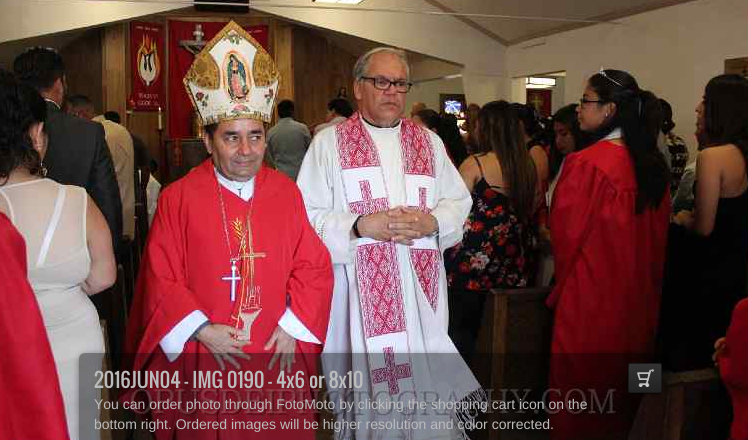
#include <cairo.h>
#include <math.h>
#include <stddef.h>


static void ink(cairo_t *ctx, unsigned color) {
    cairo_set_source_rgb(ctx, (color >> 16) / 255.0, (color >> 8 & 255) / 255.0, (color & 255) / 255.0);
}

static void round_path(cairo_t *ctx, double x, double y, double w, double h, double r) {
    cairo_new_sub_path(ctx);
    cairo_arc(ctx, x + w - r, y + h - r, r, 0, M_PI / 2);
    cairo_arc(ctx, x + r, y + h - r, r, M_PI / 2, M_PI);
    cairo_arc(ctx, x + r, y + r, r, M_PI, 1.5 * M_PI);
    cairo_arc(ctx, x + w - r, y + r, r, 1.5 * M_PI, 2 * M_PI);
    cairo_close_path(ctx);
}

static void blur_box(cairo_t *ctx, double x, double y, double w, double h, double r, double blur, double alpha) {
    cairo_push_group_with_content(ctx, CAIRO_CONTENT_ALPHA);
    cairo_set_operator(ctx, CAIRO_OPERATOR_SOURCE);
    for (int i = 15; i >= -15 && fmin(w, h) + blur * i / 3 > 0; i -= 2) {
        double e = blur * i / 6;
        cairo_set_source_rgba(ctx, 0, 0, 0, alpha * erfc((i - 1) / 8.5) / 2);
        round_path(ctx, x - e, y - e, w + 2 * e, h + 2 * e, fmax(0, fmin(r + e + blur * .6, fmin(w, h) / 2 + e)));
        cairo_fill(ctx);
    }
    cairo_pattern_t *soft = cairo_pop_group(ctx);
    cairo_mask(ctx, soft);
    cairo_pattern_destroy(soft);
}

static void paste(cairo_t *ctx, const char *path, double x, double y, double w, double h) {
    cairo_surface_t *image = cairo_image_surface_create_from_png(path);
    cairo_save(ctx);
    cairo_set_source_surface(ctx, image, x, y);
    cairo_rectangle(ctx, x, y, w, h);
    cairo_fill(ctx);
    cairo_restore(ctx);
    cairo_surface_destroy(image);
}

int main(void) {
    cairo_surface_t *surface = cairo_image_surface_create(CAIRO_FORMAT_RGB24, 748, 440);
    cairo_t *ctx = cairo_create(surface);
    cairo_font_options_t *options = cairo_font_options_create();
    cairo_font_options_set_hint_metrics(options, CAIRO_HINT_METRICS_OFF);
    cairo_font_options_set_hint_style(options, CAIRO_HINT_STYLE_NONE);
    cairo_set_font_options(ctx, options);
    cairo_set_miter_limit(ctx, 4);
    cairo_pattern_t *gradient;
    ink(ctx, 0xFFFFFF);
    cairo_paint(ctx);
    paste(ctx, "media/1.png", 0, 0, 748, 440);
    cairo_save(ctx);
    cairo_set_fill_rule(ctx, CAIRO_FILL_RULE_EVEN_ODD);
    cairo_new_path(ctx);
    cairo_move_to(ctx, 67, 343);
    cairo_line_to(ctx, 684, 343);
    cairo_line_to(ctx, 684, 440);
    cairo_line_to(ctx, 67, 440);
    cairo_close_path(ctx);
    cairo_move_to(ctx, 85, 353);
    cairo_line_to(ctx, 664, 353);
    cairo_curve_to(ctx, 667.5, 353, 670, 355.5, 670, 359);
    cairo_line_to(ctx, 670, 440);
    cairo_line_to(ctx, 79, 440);
    cairo_line_to(ctx, 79, 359);
    cairo_curve_to(ctx, 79, 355.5, 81.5, 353, 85, 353);
    cairo_close_path(ctx);
    cairo_clip(ctx);
    ink(ctx, 0x000000);
    blur_box(ctx, 80, 356, 591, 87, 6, 4, 0.6);
    cairo_restore(ctx);
    cairo_set_source_rgba(ctx, 0, 0, 0, 0.4);
    cairo_new_path(ctx);
    cairo_move_to(ctx, 85, 353);
    cairo_line_to(ctx, 664, 353);
    cairo_curve_to(ctx, 667.5, 353, 670, 355.5, 670, 359);
    cairo_line_to(ctx, 670, 440);
    cairo_line_to(ctx, 79, 440);
    cairo_line_to(ctx, 79, 359);
    cairo_curve_to(ctx, 79, 355.5, 81.5, 353, 85, 353);
    cairo_close_path(ctx);
    cairo_fill(ctx);
    cairo_select_font_face(ctx, "Oswald", CAIRO_FONT_SLANT_NORMAL, CAIRO_FONT_WEIGHT_NORMAL);
    cairo_set_font_size(ctx, 19.6);
    ink(ctx, 0xBBBBBB);
    cairo_move_to(ctx, 94, 388);
    cairo_show_text(ctx, "2016JUN04 - IMG 0190 - 4x6 or 8x10");
    cairo_select_font_face(ctx, "Liberation Sans", CAIRO_FONT_SLANT_NORMAL, CAIRO_FONT_WEIGHT_NORMAL);
    cairo_set_font_size(ctx, 14);
    cairo_move_to(ctx, 94, 409);
    cairo_show_text(ctx, "You can order photo through FotoMoto by clicking the shopping cart icon on the");
    cairo_move_to(ctx, 94, 429);
    cairo_show_text(ctx, "bottom right. Ordered images will be higher resolution and color corrected.");
    ink(ctx, 0x000000);
    blur_box(ctx, 628, 364, 34, 30, 2, 1, 0.6);
    gradient = cairo_pattern_create_linear(645, 364, 645, 392);
    cairo_pattern_add_color_stop_rgba(gradient, 0, 0.2, 0.2, 0.2, 1);
    cairo_pattern_add_color_stop_rgba(gradient, 1, 0.133, 0.133, 0.133, 1);
    cairo_set_source(ctx, gradient);
    cairo_pattern_destroy(gradient);
    round_path(ctx, 629, 364, 32, 28, 1);
    cairo_fill(ctx);
    round_path(ctx, 628.5, 363.5, 33, 29, 1.5);
    ink(ctx, 0x181818);
    cairo_set_line_width(ctx, 1);
    cairo_stroke(ctx);
    paste(ctx, "media/2.png", 637, 369, 17, 18);
    cairo_surface_write_to_png(surface, "image.png");
    cairo_font_options_destroy(options);
    cairo_destroy(ctx);
    cairo_surface_destroy(surface);
    return 0;
}
